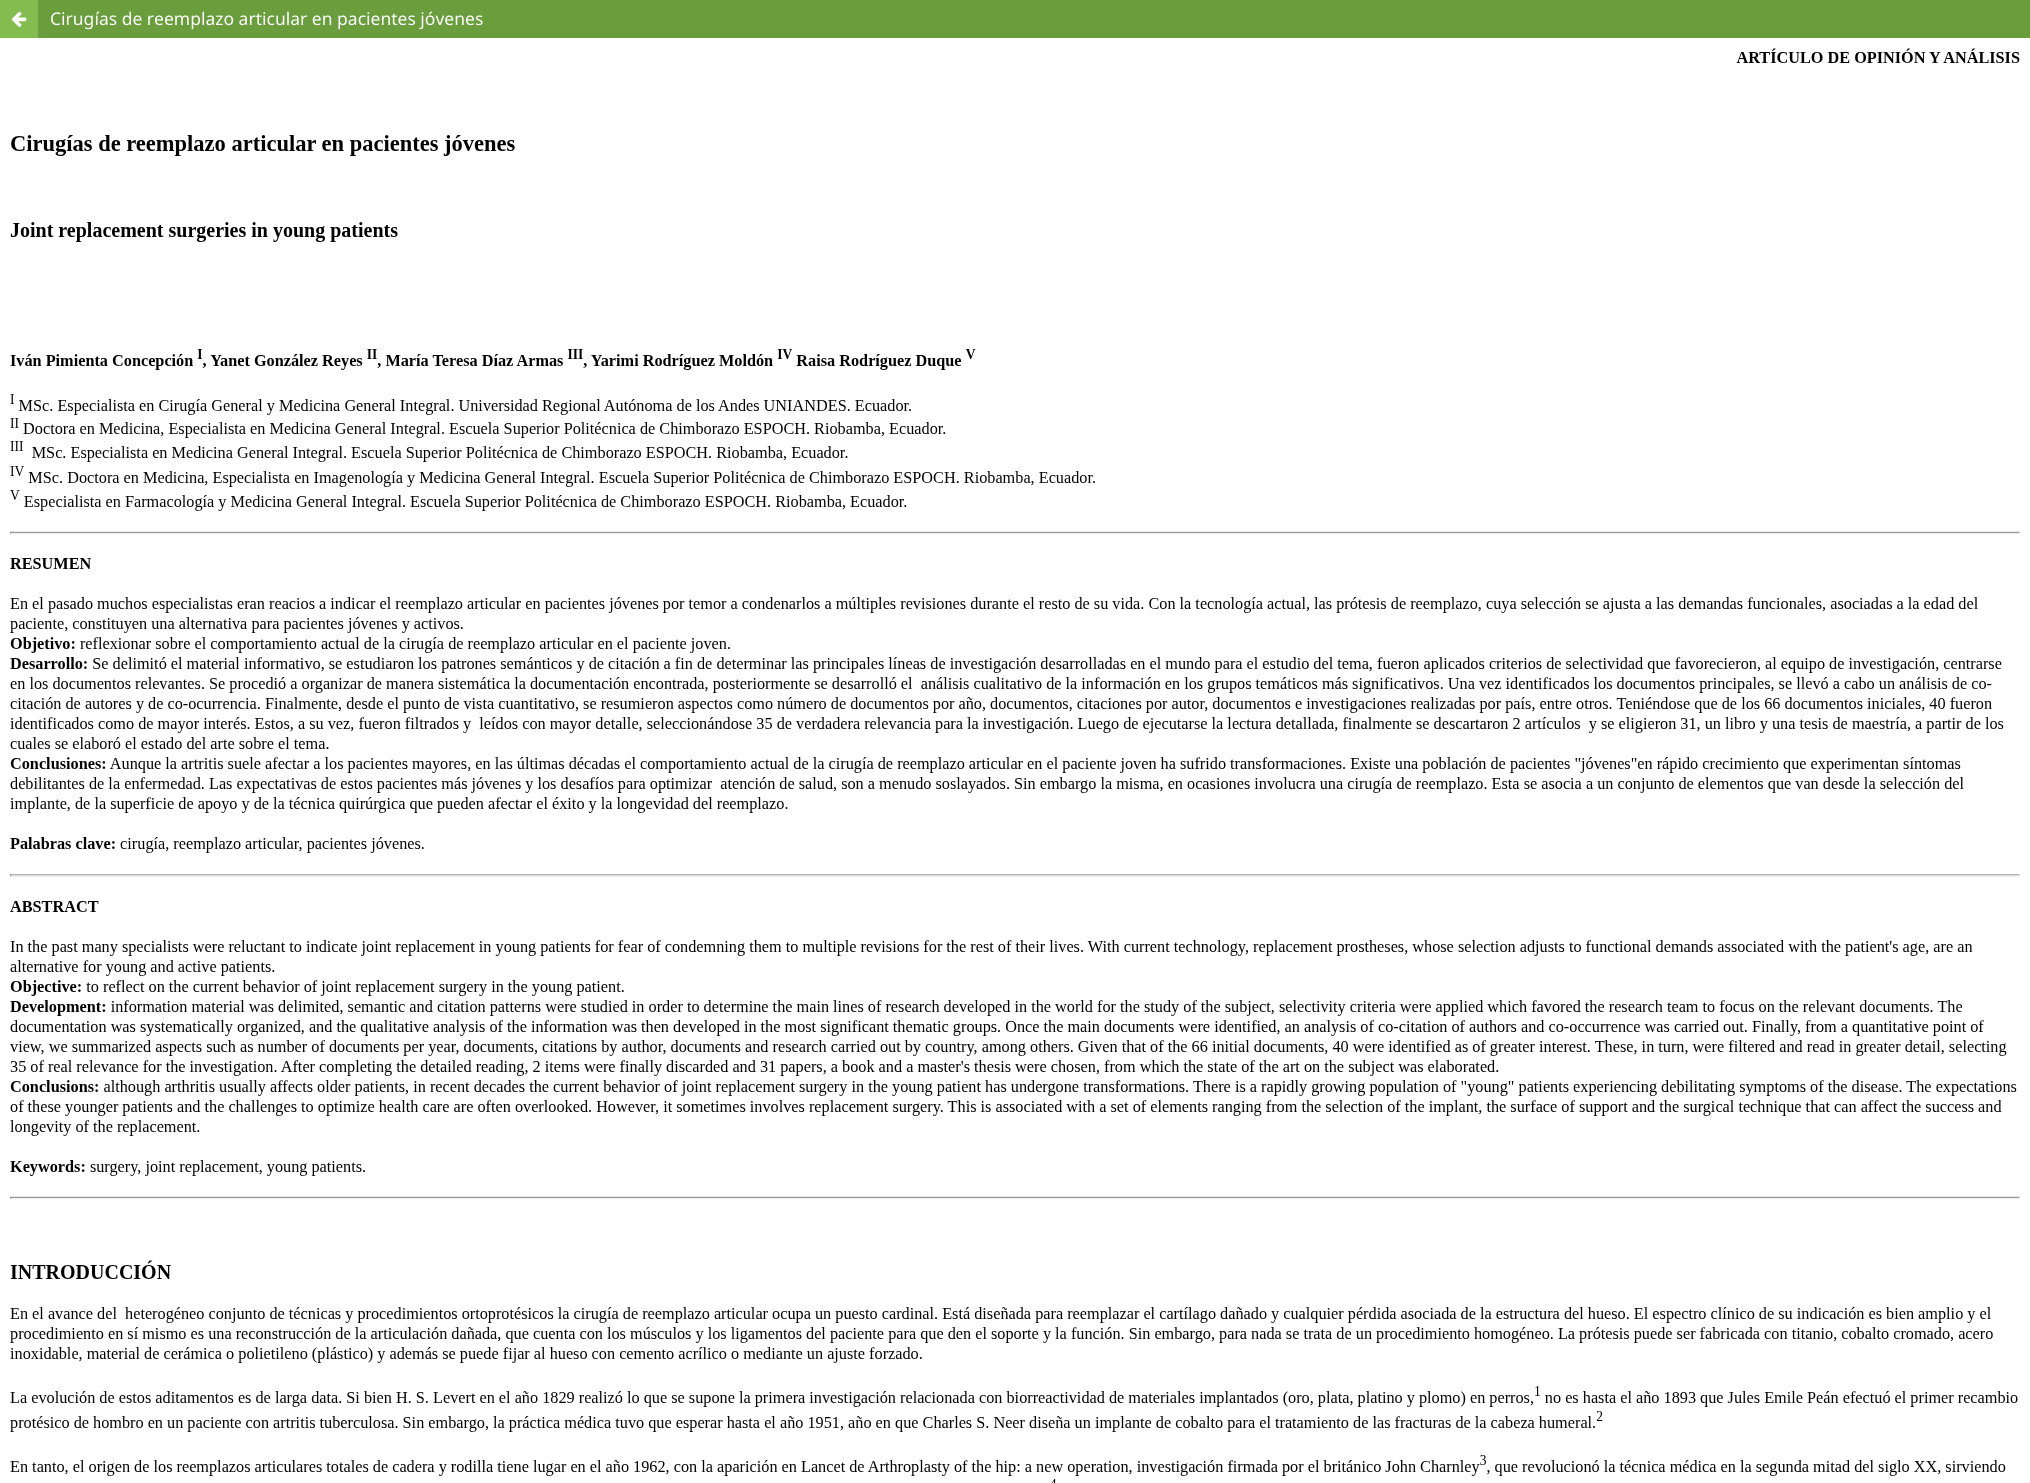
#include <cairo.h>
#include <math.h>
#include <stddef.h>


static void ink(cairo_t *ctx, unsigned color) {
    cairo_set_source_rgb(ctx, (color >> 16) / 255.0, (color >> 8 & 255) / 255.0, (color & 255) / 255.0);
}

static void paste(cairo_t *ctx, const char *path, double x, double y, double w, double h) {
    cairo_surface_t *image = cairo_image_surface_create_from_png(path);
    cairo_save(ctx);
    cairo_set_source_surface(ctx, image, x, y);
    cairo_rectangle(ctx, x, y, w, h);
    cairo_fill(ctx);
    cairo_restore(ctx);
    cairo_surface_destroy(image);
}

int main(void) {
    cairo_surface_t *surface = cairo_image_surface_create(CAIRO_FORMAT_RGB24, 2030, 1483);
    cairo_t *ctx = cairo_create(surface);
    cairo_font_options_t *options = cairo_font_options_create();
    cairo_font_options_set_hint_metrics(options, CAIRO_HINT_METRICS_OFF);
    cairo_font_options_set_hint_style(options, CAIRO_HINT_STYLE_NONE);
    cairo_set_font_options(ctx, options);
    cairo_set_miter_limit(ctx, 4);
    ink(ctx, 0xFFFFFF);
    cairo_paint(ctx);
    ink(ctx, 0x6A9E3C);
    cairo_rectangle(ctx, 38, 0, 1992, 38);
    cairo_fill(ctx);
    ink(ctx, 0x83BD50);
    cairo_rectangle(ctx, 0, 0, 38, 38);
    cairo_fill(ctx);
    paste(ctx, "media/1.png", 11, 11, 16, 16);
    cairo_select_font_face(ctx, "Noto Sans", CAIRO_FONT_SLANT_NORMAL, CAIRO_FONT_WEIGHT_NORMAL);
    cairo_set_font_size(ctx, 17.5);
    ink(ctx, 0xFFFFFF);
    cairo_move_to(ctx, 50, 25);
    cairo_show_text(ctx, "Cirugías de reemplazo articular en pacientes jóvenes");
    paste(ctx, "media/2.png", 10, 48, 2010, 1435);
    cairo_surface_write_to_png(surface, "image.png");
    cairo_font_options_destroy(options);
    cairo_destroy(ctx);
    cairo_surface_destroy(surface);
    return 0;
}
